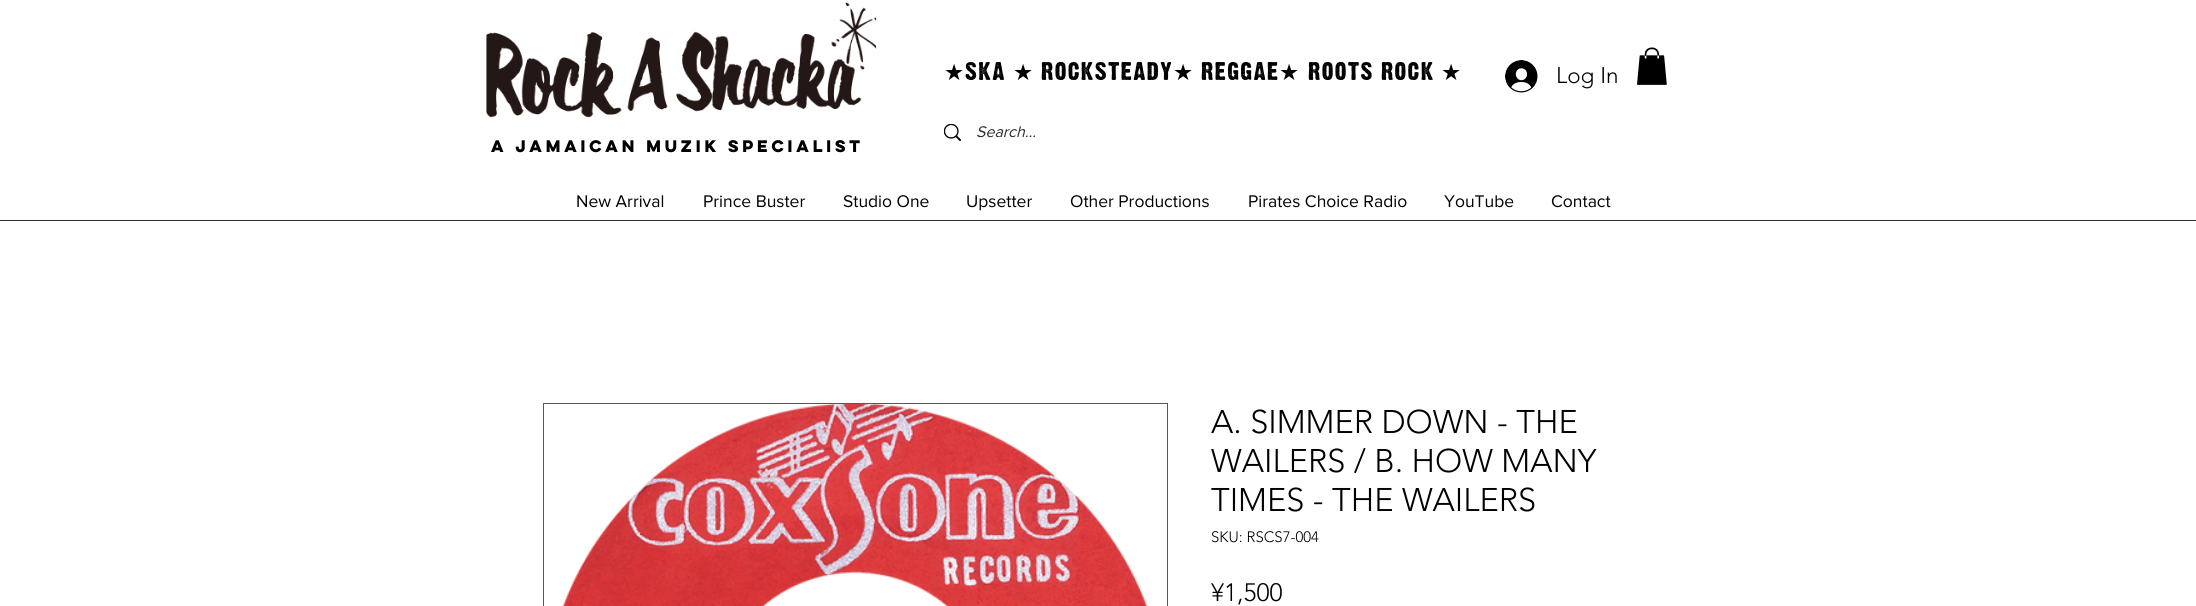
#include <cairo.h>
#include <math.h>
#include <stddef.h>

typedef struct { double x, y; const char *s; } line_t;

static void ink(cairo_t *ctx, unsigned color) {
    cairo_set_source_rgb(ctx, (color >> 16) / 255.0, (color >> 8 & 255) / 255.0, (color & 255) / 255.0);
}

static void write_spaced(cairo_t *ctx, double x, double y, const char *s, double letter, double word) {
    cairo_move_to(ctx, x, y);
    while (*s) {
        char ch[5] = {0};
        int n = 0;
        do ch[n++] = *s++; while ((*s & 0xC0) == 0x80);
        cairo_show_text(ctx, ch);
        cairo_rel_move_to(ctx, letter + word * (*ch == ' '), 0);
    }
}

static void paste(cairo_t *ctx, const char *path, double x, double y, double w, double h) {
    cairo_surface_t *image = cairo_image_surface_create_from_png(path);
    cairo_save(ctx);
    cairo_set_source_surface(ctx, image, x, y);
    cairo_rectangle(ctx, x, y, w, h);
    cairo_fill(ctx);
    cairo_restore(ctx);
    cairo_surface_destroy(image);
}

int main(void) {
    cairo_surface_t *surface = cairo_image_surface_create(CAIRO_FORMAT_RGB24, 2196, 606);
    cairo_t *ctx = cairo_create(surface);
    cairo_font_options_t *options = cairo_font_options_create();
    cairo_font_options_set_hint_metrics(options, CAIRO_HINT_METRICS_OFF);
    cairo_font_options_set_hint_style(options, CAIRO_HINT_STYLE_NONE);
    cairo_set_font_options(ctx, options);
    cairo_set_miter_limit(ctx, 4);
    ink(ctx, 0xFFFFFF);
    cairo_paint(ctx);
    paste(ctx, "media/1.png", 486, 2, 391, 116);
    cairo_select_font_face(ctx, "DejaVu Sans", CAIRO_FONT_SLANT_NORMAL, CAIRO_FONT_WEIGHT_NORMAL);
    cairo_set_font_size(ctx, 22.5);
    ink(ctx, 0x000000);
    write_spaced(ctx, 944, 80, "★", 1.4, 0);
    cairo_select_font_face(ctx, "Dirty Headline", CAIRO_FONT_SLANT_NORMAL, CAIRO_FONT_WEIGHT_NORMAL);
    write_spaced(ctx, 965, 80, "SKA", 1.4, 0);
    cairo_select_font_face(ctx, "DejaVu Sans", CAIRO_FONT_SLANT_NORMAL, CAIRO_FONT_WEIGHT_NORMAL);
    write_spaced(ctx, 1013, 80, "★", 1.4, 0);
    cairo_select_font_face(ctx, "Dirty Headline", CAIRO_FONT_SLANT_NORMAL, CAIRO_FONT_WEIGHT_NORMAL);
    write_spaced(ctx, 1041, 80, "ROCKSTEADY", 1.4, 0);
    cairo_select_font_face(ctx, "DejaVu Sans", CAIRO_FONT_SLANT_NORMAL, CAIRO_FONT_WEIGHT_NORMAL);
    write_spaced(ctx, 1173, 80, "★", 1.4, 0);
    cairo_select_font_face(ctx, "Dirty Headline", CAIRO_FONT_SLANT_NORMAL, CAIRO_FONT_WEIGHT_NORMAL);
    write_spaced(ctx, 1201, 80, "REGGAE", 1.4, 0);
    cairo_select_font_face(ctx, "DejaVu Sans", CAIRO_FONT_SLANT_NORMAL, CAIRO_FONT_WEIGHT_NORMAL);
    write_spaced(ctx, 1279, 80, "★", 1.4, 0);
    cairo_select_font_face(ctx, "Dirty Headline", CAIRO_FONT_SLANT_NORMAL, CAIRO_FONT_WEIGHT_NORMAL);
    write_spaced(ctx, 1308, 80, "ROOTS ROCK", 1.4, 0);
    cairo_select_font_face(ctx, "DejaVu Sans", CAIRO_FONT_SLANT_NORMAL, CAIRO_FONT_WEIGHT_NORMAL);
    write_spaced(ctx, 1441, 80, "★", 1.4, 0);
    paste(ctx, "media/2.png", 1505, 60, 33, 33);
    cairo_select_font_face(ctx, "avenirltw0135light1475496 Light", CAIRO_FONT_SLANT_NORMAL, CAIRO_FONT_WEIGHT_NORMAL);
    cairo_move_to(ctx, 1556, 83);
    cairo_show_text(ctx, "Log In");
    paste(ctx, "media/3.png", 1637, 47, 30, 38);
    paste(ctx, "media/4.png", 944, 124, 17, 17);
    cairo_select_font_face(ctx, "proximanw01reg", CAIRO_FONT_SLANT_ITALIC, CAIRO_FONT_WEIGHT_NORMAL);
    cairo_set_font_size(ctx, 16);
    ink(ctx, 0x2F2E2E);
    cairo_move_to(ctx, 976, 137);
    cairo_show_text(ctx, "Search...");
    cairo_select_font_face(ctx, "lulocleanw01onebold", CAIRO_FONT_SLANT_NORMAL, CAIRO_FONT_WEIGHT_BOLD);
    cairo_set_font_size(ctx, 15);
    ink(ctx, 0x000000);
    write_spaced(ctx, 491, 152, "A JAMAICAN MUZIK SPECIALIST", 0.45, 0);
    cairo_select_font_face(ctx, "proximanw01reg", CAIRO_FONT_SLANT_NORMAL, CAIRO_FONT_WEIGHT_NORMAL);
    cairo_set_font_size(ctx, 17.5);
    {
        static const line_t items[] = {
            {576, 207, "New Arrival"},
            {703, 207, "Prince Buster"},
            {843, 207, "Studio One"},
            {966, 207, "Upsetter"},
            {1070, 207, "Other Productions"},
            {1248, 207, "Pirates Choice Radio"},
            {1444, 207, "YouTube"},
            {1551, 207, "Contact"},
        };
        for (size_t i = 0; i < sizeof items / sizeof *items; i++) {
            cairo_move_to(ctx, items[i].x, items[i].y);
            cairo_show_text(ctx, items[i].s);
        }
    }
    ink(ctx, 0x2F2E2E);
    cairo_rectangle(ctx, 0, 220, 2196, 1);
    cairo_fill(ctx);
    cairo_rectangle(ctx, 543.5, 403.5, 624, 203);
    ink(ctx, 0x595858);
    cairo_set_line_width(ctx, 1);
    cairo_stroke(ctx);
    paste(ctx, "media/5.png", 562, 404, 586, 202);
    cairo_select_font_face(ctx, "avenirltw0135light1475496 Light", CAIRO_FONT_SLANT_NORMAL, CAIRO_FONT_WEIGHT_NORMAL);
    cairo_set_font_size(ctx, 32.5);
    ink(ctx, 0x000000);
    {
        static const line_t items[] = {
            {1211, 433, "A. SIMMER DOWN - THE"},
            {1211, 472, "WAILERS / B. HOW MANY"},
            {1211, 511, "TIMES - THE WAILERS"},
        };
        for (size_t i = 0; i < sizeof items / sizeof *items; i++) {
            cairo_move_to(ctx, items[i].x, items[i].y);
            cairo_show_text(ctx, items[i].s);
        }
    }
    cairo_set_font_size(ctx, 15);
    cairo_move_to(ctx, 1211, 542);
    cairo_show_text(ctx, "SKU: RSCS7-004");
    cairo_set_font_size(ctx, 25);
    cairo_move_to(ctx, 1211, 601);
    cairo_show_text(ctx, "¥1,500");
    cairo_surface_write_to_png(surface, "image.png");
    cairo_font_options_destroy(options);
    cairo_destroy(ctx);
    cairo_surface_destroy(surface);
    return 0;
}
